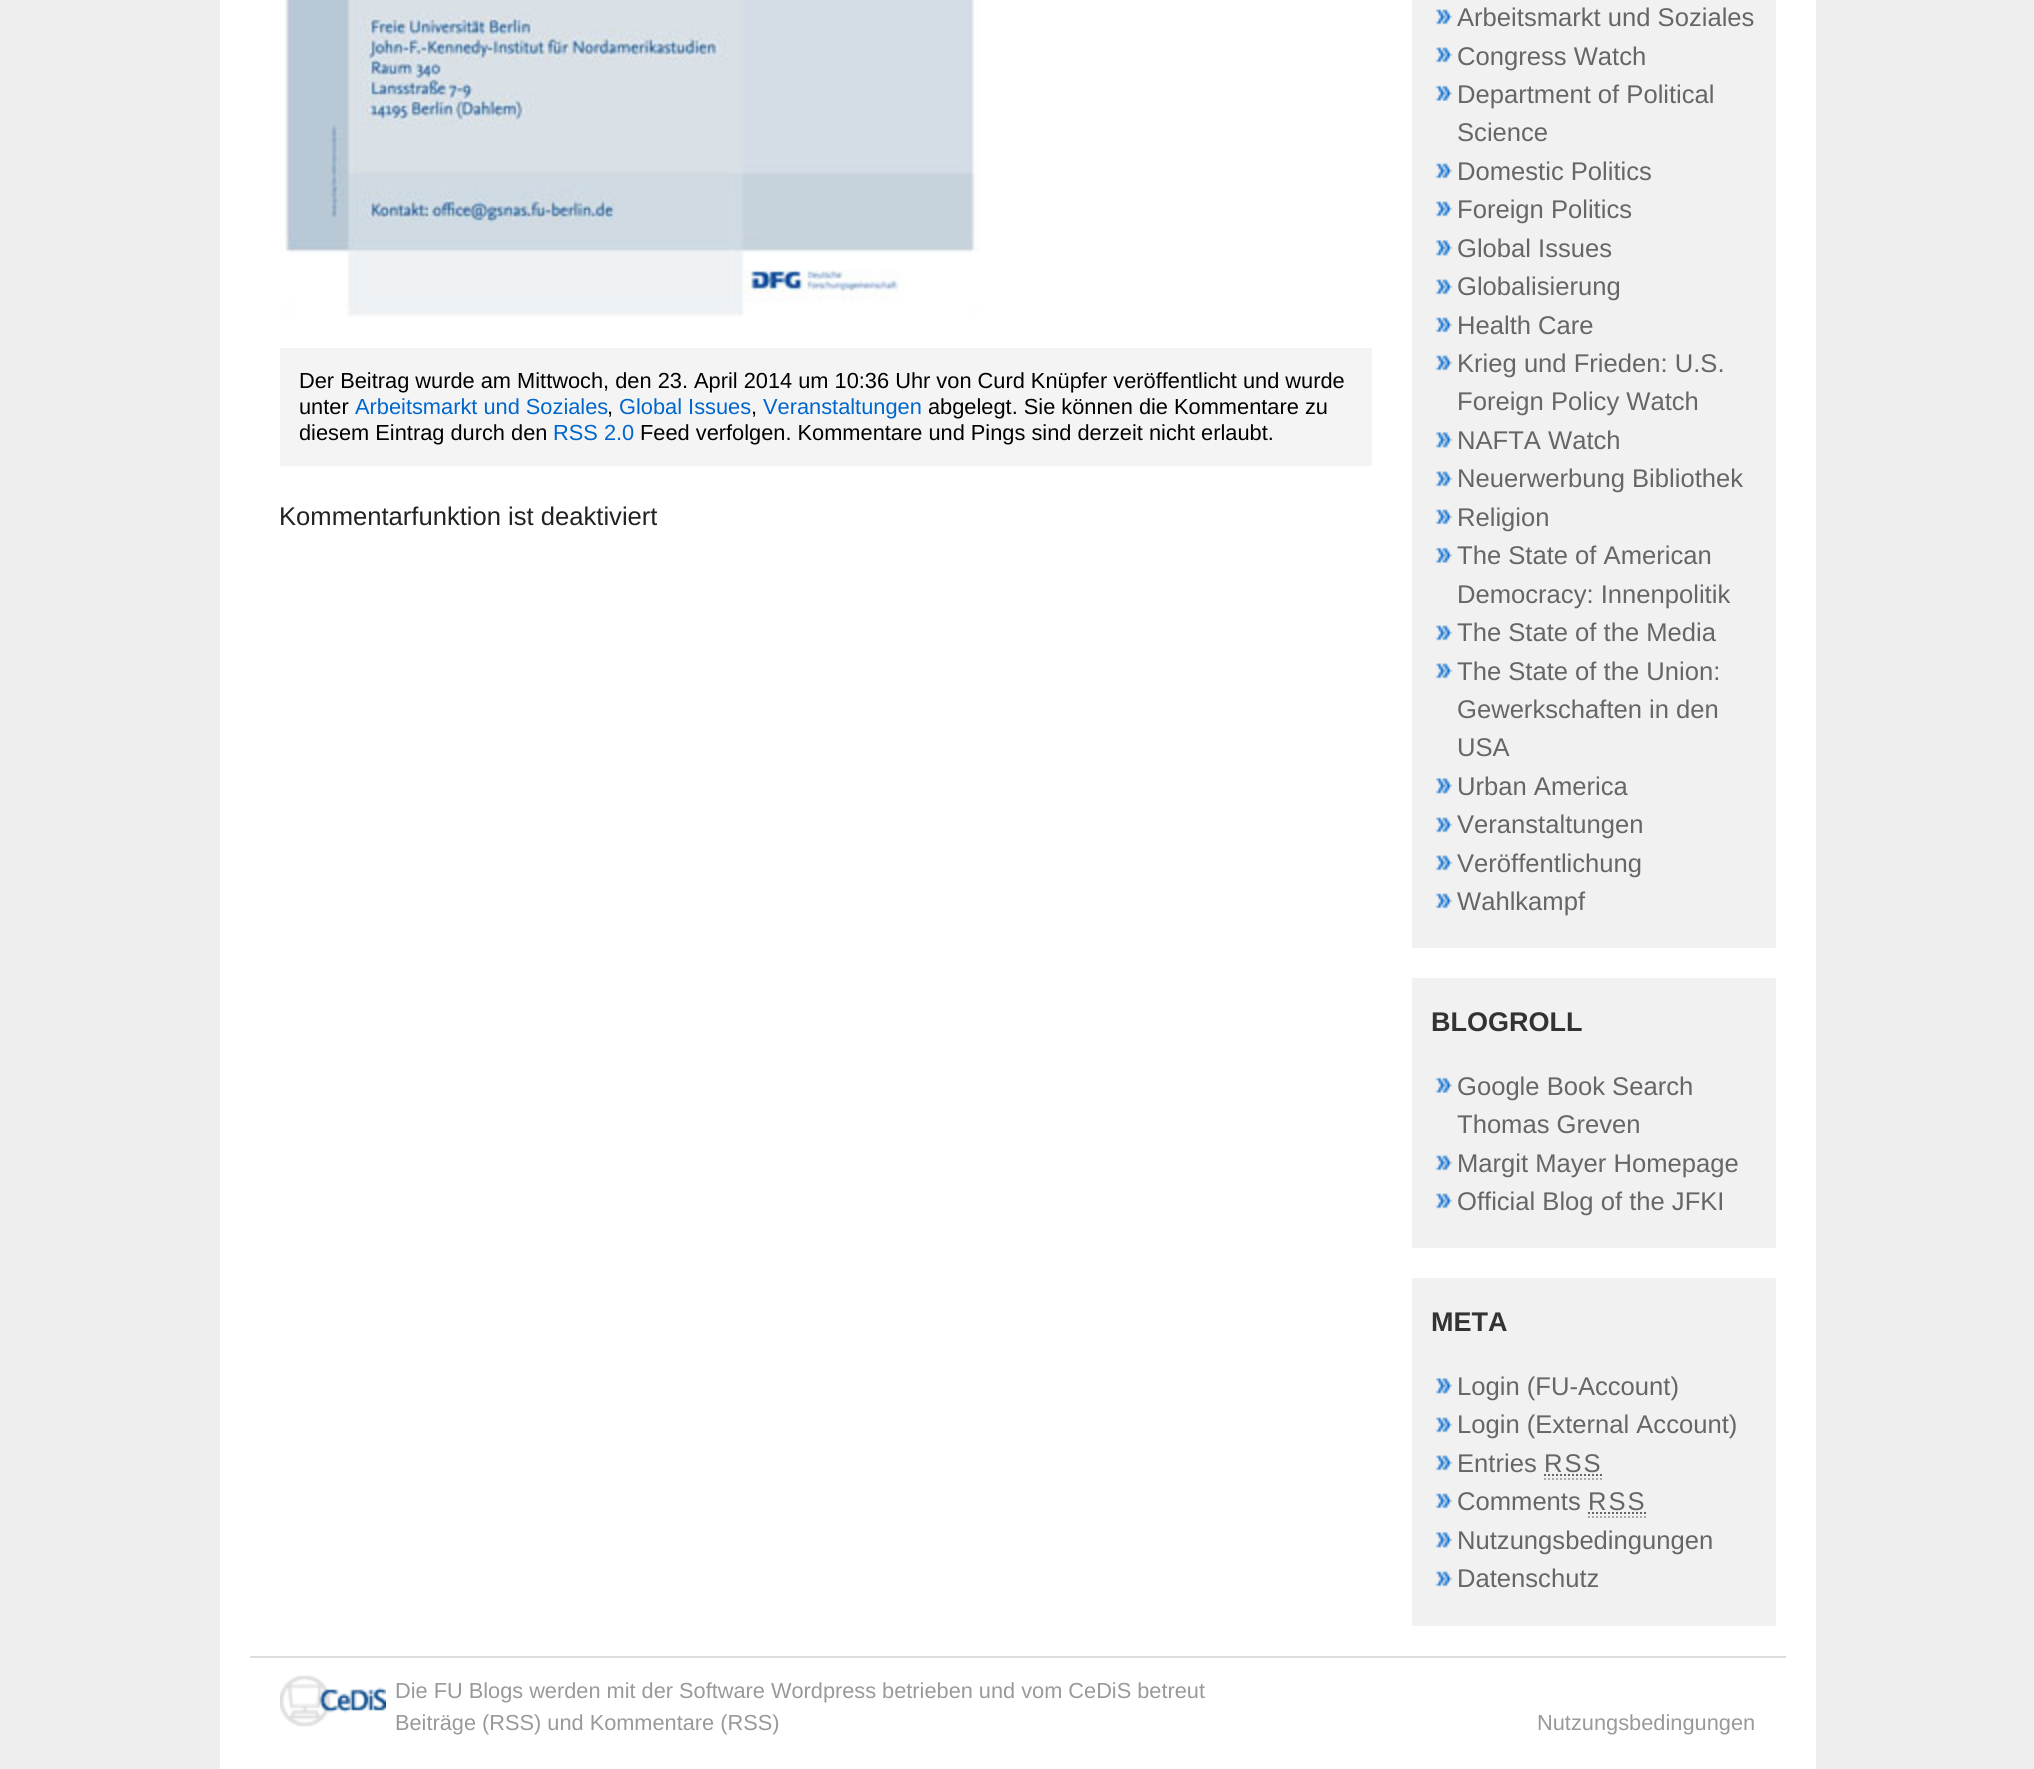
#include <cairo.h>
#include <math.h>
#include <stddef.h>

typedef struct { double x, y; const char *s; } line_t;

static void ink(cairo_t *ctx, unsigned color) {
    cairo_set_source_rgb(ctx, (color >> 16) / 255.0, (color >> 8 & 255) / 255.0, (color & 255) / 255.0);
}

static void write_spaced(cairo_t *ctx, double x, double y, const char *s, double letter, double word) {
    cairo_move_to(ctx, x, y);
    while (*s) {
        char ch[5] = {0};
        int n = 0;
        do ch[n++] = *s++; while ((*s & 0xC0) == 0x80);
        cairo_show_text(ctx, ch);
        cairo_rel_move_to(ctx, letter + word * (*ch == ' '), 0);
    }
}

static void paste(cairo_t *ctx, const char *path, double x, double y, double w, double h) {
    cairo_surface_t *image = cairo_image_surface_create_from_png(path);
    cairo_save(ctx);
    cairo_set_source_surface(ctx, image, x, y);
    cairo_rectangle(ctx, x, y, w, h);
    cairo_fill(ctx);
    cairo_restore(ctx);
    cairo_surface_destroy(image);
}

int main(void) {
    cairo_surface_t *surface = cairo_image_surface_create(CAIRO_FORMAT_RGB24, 2034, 1769);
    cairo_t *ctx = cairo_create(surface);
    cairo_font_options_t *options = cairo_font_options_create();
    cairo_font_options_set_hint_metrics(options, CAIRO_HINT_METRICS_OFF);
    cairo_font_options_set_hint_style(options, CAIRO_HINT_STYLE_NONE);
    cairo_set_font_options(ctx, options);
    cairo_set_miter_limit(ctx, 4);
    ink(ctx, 0xEEEEEE);
    cairo_paint(ctx);
    ink(ctx, 0xFFFFFF);
    cairo_rectangle(ctx, 220, 0, 1596, 1769);
    cairo_fill(ctx);
    paste(ctx, "media/1.png", 280, 0, 700, 317);
    ink(ctx, 0xF4F4F4);
    cairo_rectangle(ctx, 280, 348, 1092, 118);
    cairo_fill(ctx);
    cairo_select_font_face(ctx, "Liberation Sans", CAIRO_FONT_SLANT_NORMAL, CAIRO_FONT_WEIGHT_NORMAL);
    cairo_set_font_size(ctx, 21.8);
    ink(ctx, 0x000000);
    cairo_move_to(ctx, 299, 388);
    cairo_show_text(ctx, "Der Beitrag wurde am Mittwoch, den 23. April 2014 um 10:36 Uhr von Curd Knüpfer veröffentlicht und wurde");
    cairo_move_to(ctx, 299, 414);
    cairo_show_text(ctx, "unter");
    ink(ctx, 0x0066CC);
    cairo_move_to(ctx, 355, 414);
    cairo_show_text(ctx, "Arbeitsmarkt und Soziales");
    ink(ctx, 0x000000);
    cairo_move_to(ctx, 607, 414);
    cairo_show_text(ctx, ",");
    ink(ctx, 0x0066CC);
    cairo_move_to(ctx, 619, 414);
    cairo_show_text(ctx, "Global Issues");
    ink(ctx, 0x000000);
    cairo_move_to(ctx, 751, 414);
    cairo_show_text(ctx, ",");
    ink(ctx, 0x0066CC);
    cairo_move_to(ctx, 763, 414);
    cairo_show_text(ctx, "Veranstaltungen");
    ink(ctx, 0x000000);
    cairo_move_to(ctx, 928, 414);
    cairo_show_text(ctx, "abgelegt. Sie können die Kommentare zu");
    cairo_move_to(ctx, 299, 440);
    cairo_show_text(ctx, "diesem Eintrag durch den");
    ink(ctx, 0x0066CC);
    cairo_move_to(ctx, 553, 440);
    cairo_show_text(ctx, "RSS 2.0");
    ink(ctx, 0x000000);
    cairo_move_to(ctx, 640, 440);
    cairo_show_text(ctx, "Feed verfolgen. Kommentare und Pings sind derzeit nicht erlaubt.");
    cairo_set_font_size(ctx, 25.6);
    ink(ctx, 0x222222);
    cairo_move_to(ctx, 279, 525);
    cairo_show_text(ctx, "Kommentarfunktion ist deaktiviert");
    ink(ctx, 0xF1F1F1);
    cairo_rectangle(ctx, 1412, 0, 364, 948);
    cairo_fill(ctx);
    paste(ctx, "media/2.png", 1435, 9, 18, 16);
    ink(ctx, 0x666666);
    cairo_move_to(ctx, 1457, 26);
    cairo_show_text(ctx, "Arbeitsmarkt und Soziales");
    paste(ctx, "media/2.png", 1435, 47, 18, 16);
    cairo_move_to(ctx, 1457, 65);
    cairo_show_text(ctx, "Congress Watch");
    paste(ctx, "media/3.png", 1435, 85, 18, 16);
    cairo_move_to(ctx, 1457, 103);
    cairo_show_text(ctx, "Department of Political");
    cairo_move_to(ctx, 1457, 141);
    cairo_show_text(ctx, "Science");
    paste(ctx, "media/2.png", 1435, 163, 18, 16);
    cairo_move_to(ctx, 1457, 180);
    cairo_show_text(ctx, "Domestic Politics");
    paste(ctx, "media/2.png", 1435, 201, 18, 16);
    cairo_move_to(ctx, 1457, 218);
    cairo_show_text(ctx, "Foreign Politics");
    paste(ctx, "media/4.png", 1435, 240, 18, 16);
    cairo_move_to(ctx, 1457, 257);
    cairo_show_text(ctx, "Global Issues");
    paste(ctx, "media/2.png", 1435, 279, 18, 16);
    cairo_move_to(ctx, 1457, 295);
    cairo_show_text(ctx, "Globalisierung");
    paste(ctx, "media/2.png", 1435, 317, 18, 16);
    cairo_move_to(ctx, 1457, 334);
    cairo_show_text(ctx, "Health Care");
    paste(ctx, "media/2.png", 1435, 355, 18, 16);
    cairo_move_to(ctx, 1457, 372);
    cairo_show_text(ctx, "Krieg und Frieden: U.S.");
    cairo_move_to(ctx, 1457, 410);
    cairo_show_text(ctx, "Foreign Policy Watch");
    paste(ctx, "media/4.png", 1435, 432, 18, 16);
    cairo_move_to(ctx, 1457, 449);
    cairo_show_text(ctx, "NAFTA Watch");
    paste(ctx, "media/2.png", 1435, 471, 18, 16);
    cairo_move_to(ctx, 1457, 487);
    cairo_show_text(ctx, "Neuerwerbung Bibliothek");
    paste(ctx, "media/2.png", 1435, 509, 18, 16);
    cairo_move_to(ctx, 1457, 526);
    cairo_show_text(ctx, "Religion");
    paste(ctx, "media/3.png", 1435, 547, 18, 16);
    cairo_move_to(ctx, 1457, 564);
    cairo_show_text(ctx, "The State of American");
    cairo_move_to(ctx, 1457, 603);
    cairo_show_text(ctx, "Democracy: Innenpolitik");
    paste(ctx, "media/2.png", 1435, 625, 18, 16);
    cairo_move_to(ctx, 1457, 641);
    cairo_show_text(ctx, "The State of the Media");
    paste(ctx, "media/2.png", 1435, 663, 18, 16);
    {
        static const line_t items[] = {
            {1457, 680, "The State of the Union:"},
            {1457, 718, "Gewerkschaften in den"},
            {1457, 756, "USA"},
        };
        for (size_t i = 0; i < sizeof items / sizeof *items; i++) {
            cairo_move_to(ctx, items[i].x, items[i].y);
            cairo_show_text(ctx, items[i].s);
        }
    }
    paste(ctx, "media/4.png", 1435, 778, 18, 16);
    cairo_move_to(ctx, 1457, 795);
    cairo_show_text(ctx, "Urban America");
    paste(ctx, "media/2.png", 1435, 817, 18, 16);
    cairo_move_to(ctx, 1457, 833);
    cairo_show_text(ctx, "Veranstaltungen");
    paste(ctx, "media/2.png", 1435, 855, 18, 16);
    cairo_move_to(ctx, 1457, 872);
    cairo_show_text(ctx, "Veröffentlichung");
    paste(ctx, "media/2.png", 1435, 893, 18, 16);
    cairo_move_to(ctx, 1457, 910);
    cairo_show_text(ctx, "Wahlkampf");
    ink(ctx, 0xF1F1F1);
    cairo_rectangle(ctx, 1412, 978, 364, 270);
    cairo_fill(ctx);
    cairo_select_font_face(ctx, "Liberation Sans", CAIRO_FONT_SLANT_NORMAL, CAIRO_FONT_WEIGHT_BOLD);
    cairo_set_font_size(ctx, 27);
    ink(ctx, 0x333333);
    cairo_move_to(ctx, 1431, 1031);
    cairo_show_text(ctx, "BLOGROLL");
    paste(ctx, "media/3.png", 1435, 1077, 18, 16);
    cairo_select_font_face(ctx, "Liberation Sans", CAIRO_FONT_SLANT_NORMAL, CAIRO_FONT_WEIGHT_NORMAL);
    cairo_set_font_size(ctx, 25.6);
    ink(ctx, 0x666666);
    cairo_move_to(ctx, 1457, 1095);
    cairo_show_text(ctx, "Google Book Search");
    cairo_move_to(ctx, 1457, 1133);
    cairo_show_text(ctx, "Thomas Greven");
    paste(ctx, "media/2.png", 1435, 1155, 18, 16);
    cairo_move_to(ctx, 1457, 1172);
    cairo_show_text(ctx, "Margit Mayer Homepage");
    paste(ctx, "media/2.png", 1435, 1193, 18, 16);
    cairo_move_to(ctx, 1457, 1210);
    cairo_show_text(ctx, "Official Blog of the JFKI");
    ink(ctx, 0xF1F1F1);
    cairo_rectangle(ctx, 1412, 1278, 364, 348);
    cairo_fill(ctx);
    cairo_select_font_face(ctx, "Liberation Sans", CAIRO_FONT_SLANT_NORMAL, CAIRO_FONT_WEIGHT_BOLD);
    cairo_set_font_size(ctx, 27);
    ink(ctx, 0x333333);
    cairo_move_to(ctx, 1431, 1331);
    cairo_show_text(ctx, "META");
    paste(ctx, "media/4.png", 1435, 1378, 18, 16);
    cairo_select_font_face(ctx, "Liberation Sans", CAIRO_FONT_SLANT_NORMAL, CAIRO_FONT_WEIGHT_NORMAL);
    cairo_set_font_size(ctx, 25.6);
    ink(ctx, 0x666666);
    cairo_move_to(ctx, 1457, 1395);
    cairo_show_text(ctx, "Login (FU-Account)");
    paste(ctx, "media/2.png", 1435, 1417, 18, 16);
    cairo_move_to(ctx, 1457, 1433);
    cairo_show_text(ctx, "Login (External Account)");
    paste(ctx, "media/2.png", 1435, 1455, 18, 16);
    cairo_move_to(ctx, 1457, 1472);
    cairo_show_text(ctx, "Entries");
    write_spaced(ctx, 1544, 1472, "RSS", 2, 0);
    cairo_new_path(ctx);
    cairo_move_to(ctx, 1544, 1479);
    cairo_line_to(ctx, 1602, 1479);
    ink(ctx, 0xAAAAAA);
    cairo_set_dash(ctx, (double[]){2, 2}, 2, 0);
    cairo_stroke(ctx);
    cairo_new_path(ctx);
    cairo_move_to(ctx, 1544, 1475);
    cairo_line_to(ctx, 1602, 1475);
    ink(ctx, 0x666666);
    cairo_stroke(ctx);
    paste(ctx, "media/2.png", 1435, 1493, 18, 16);
    cairo_move_to(ctx, 1457, 1510);
    cairo_show_text(ctx, "Comments");
    write_spaced(ctx, 1588, 1510, "RSS", 2, 0);
    cairo_new_path(ctx);
    cairo_move_to(ctx, 1588, 1517);
    cairo_line_to(ctx, 1646, 1517);
    ink(ctx, 0xAAAAAA);
    cairo_stroke(ctx);
    cairo_new_path(ctx);
    cairo_move_to(ctx, 1588, 1513);
    cairo_line_to(ctx, 1646, 1513);
    ink(ctx, 0x666666);
    cairo_stroke(ctx);
    paste(ctx, "media/4.png", 1435, 1532, 18, 16);
    cairo_move_to(ctx, 1457, 1549);
    cairo_show_text(ctx, "Nutzungsbedingungen");
    paste(ctx, "media/2.png", 1435, 1571, 18, 16);
    cairo_move_to(ctx, 1457, 1587);
    cairo_show_text(ctx, "Datenschutz");
    ink(ctx, 0xDDDDDD);
    cairo_rectangle(ctx, 250, 1656, 1536, 2);
    cairo_fill(ctx);
    paste(ctx, "media/5.png", 280, 1675, 106, 52);
    cairo_set_font_size(ctx, 21.75);
    ink(ctx, 0x999999);
    cairo_move_to(ctx, 395, 1698);
    cairo_show_text(ctx, "Die FU Blogs werden mit der Software Wordpress betrieben und vom CeDiS betreut");
    cairo_move_to(ctx, 395, 1730);
    cairo_show_text(ctx, "Beiträge (RSS) und Kommentare (RSS)");
    cairo_set_font_size(ctx, 21.8);
    cairo_move_to(ctx, 1537, 1730);
    cairo_show_text(ctx, "Nutzungsbedingungen");
    cairo_surface_write_to_png(surface, "image.png");
    cairo_font_options_destroy(options);
    cairo_destroy(ctx);
    cairo_surface_destroy(surface);
    return 0;
}
